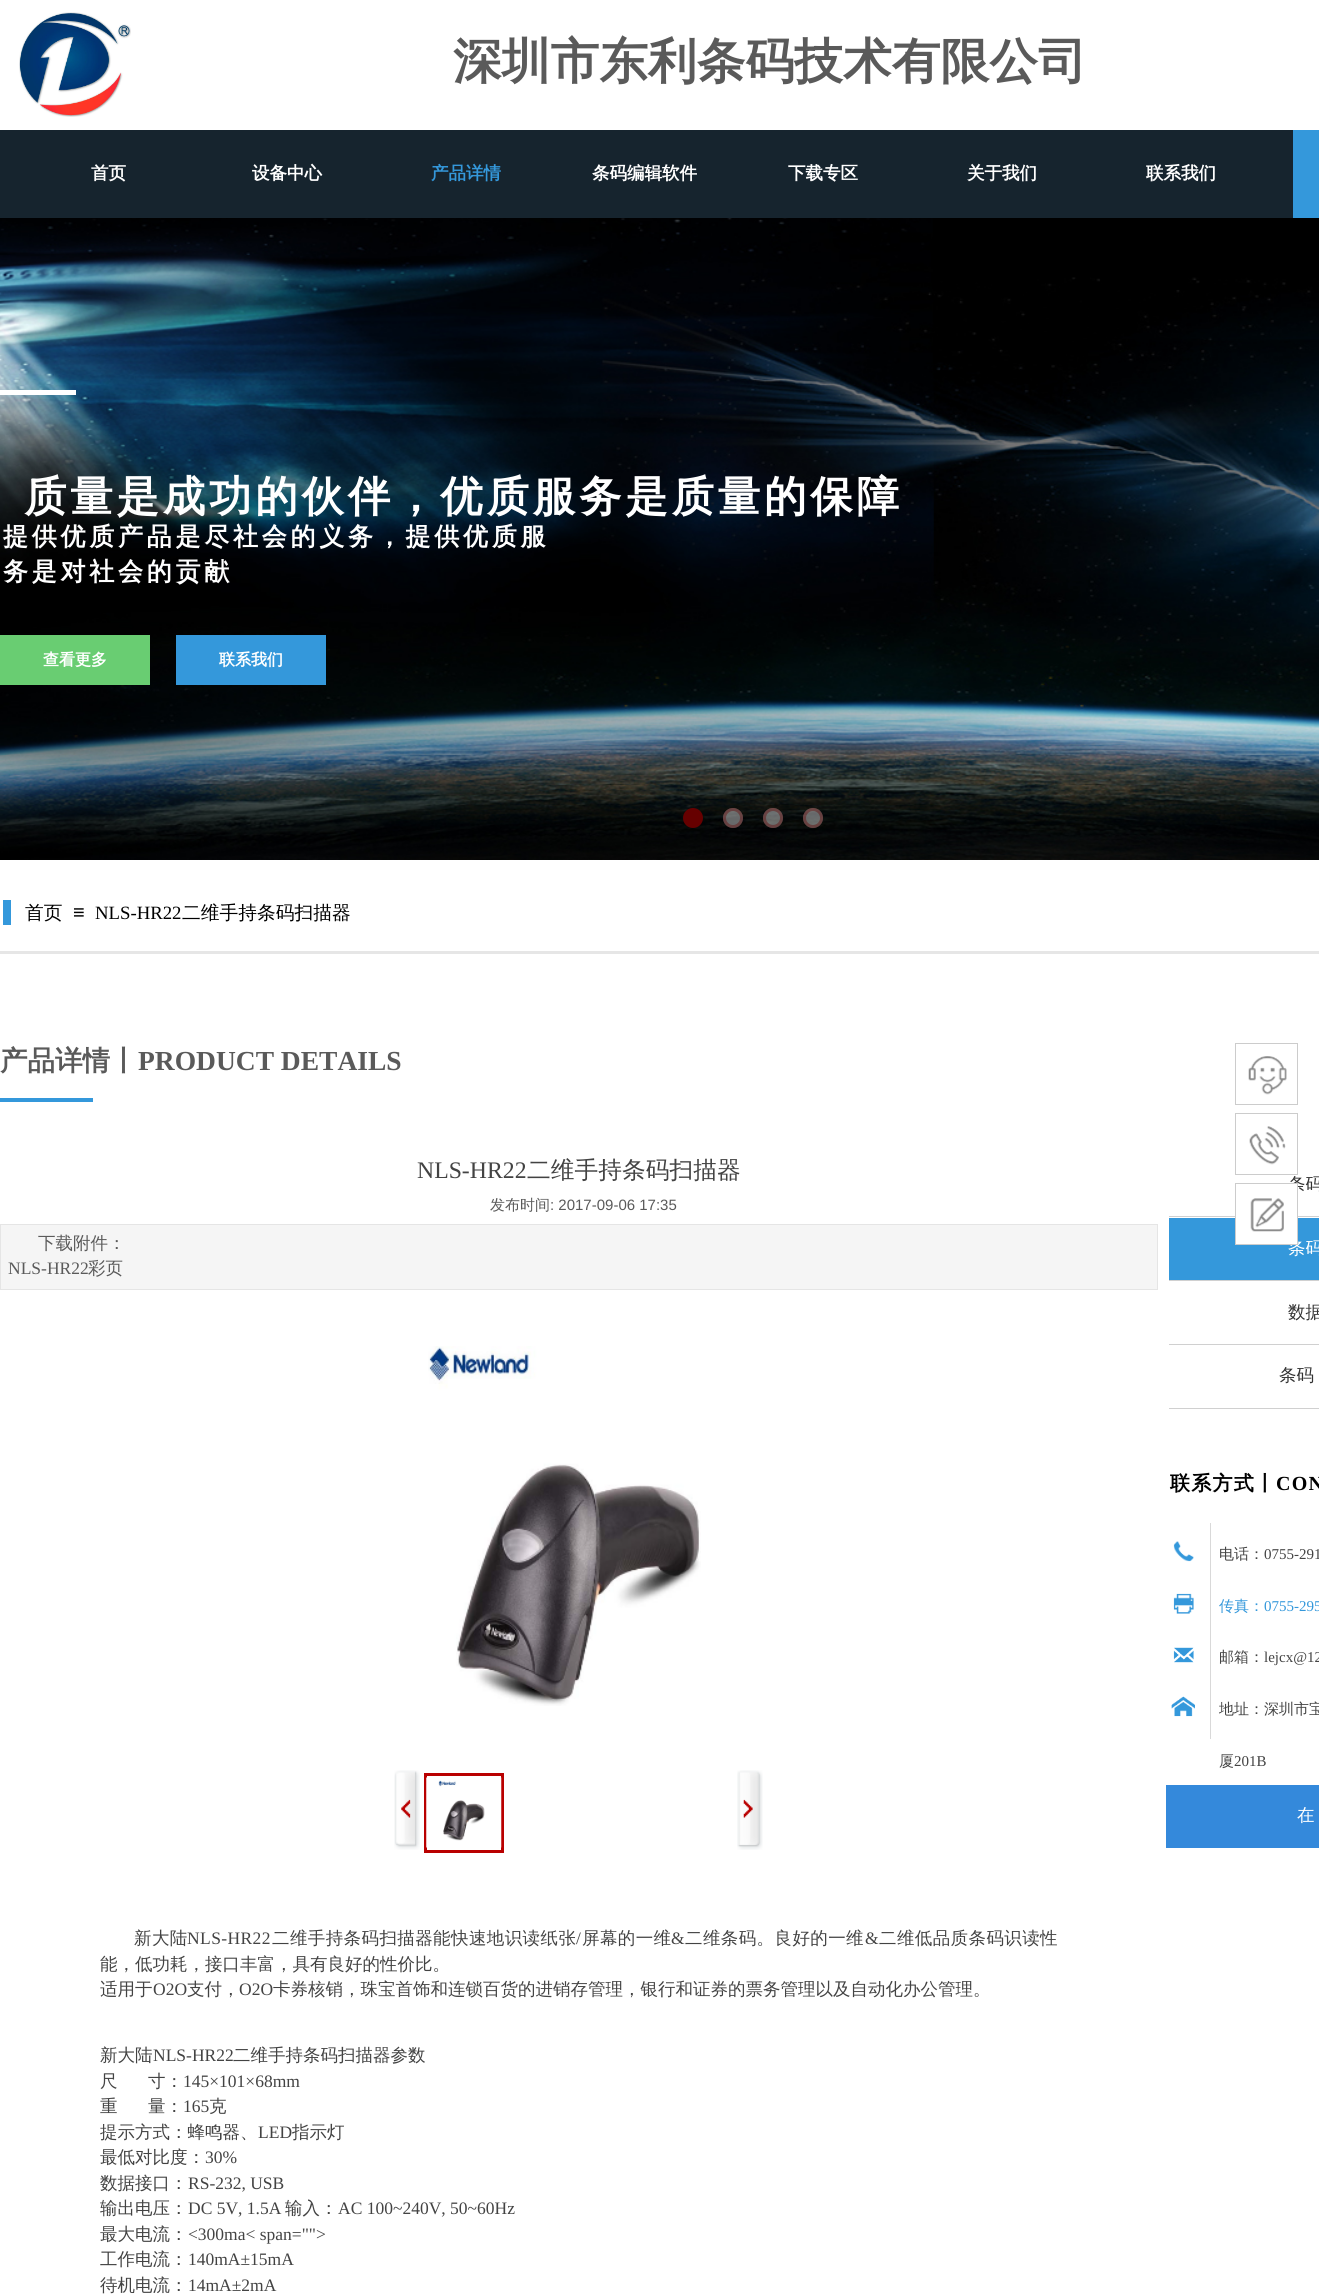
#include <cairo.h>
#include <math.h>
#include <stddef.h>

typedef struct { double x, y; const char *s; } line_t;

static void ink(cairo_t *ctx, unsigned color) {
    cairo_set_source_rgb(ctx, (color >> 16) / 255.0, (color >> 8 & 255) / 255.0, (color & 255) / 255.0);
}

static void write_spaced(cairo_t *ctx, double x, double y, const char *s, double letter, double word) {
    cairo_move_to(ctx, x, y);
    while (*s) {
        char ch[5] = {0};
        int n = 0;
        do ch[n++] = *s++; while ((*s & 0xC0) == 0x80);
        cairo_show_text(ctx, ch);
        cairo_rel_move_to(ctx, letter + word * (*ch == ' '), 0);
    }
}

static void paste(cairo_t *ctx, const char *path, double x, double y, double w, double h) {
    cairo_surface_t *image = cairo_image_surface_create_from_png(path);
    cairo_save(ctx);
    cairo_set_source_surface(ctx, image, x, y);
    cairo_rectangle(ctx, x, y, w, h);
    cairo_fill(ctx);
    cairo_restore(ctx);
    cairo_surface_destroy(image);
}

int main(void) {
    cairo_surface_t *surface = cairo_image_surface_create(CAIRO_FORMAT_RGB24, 1319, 2294);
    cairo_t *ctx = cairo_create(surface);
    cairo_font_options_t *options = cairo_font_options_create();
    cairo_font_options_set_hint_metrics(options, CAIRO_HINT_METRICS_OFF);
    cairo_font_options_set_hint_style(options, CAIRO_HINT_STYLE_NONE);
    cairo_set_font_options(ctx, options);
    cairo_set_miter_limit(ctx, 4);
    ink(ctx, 0xFFFFFF);
    cairo_paint(ctx);
    paste(ctx, "media/1.png", 19, 12, 112, 105);
    cairo_select_font_face(ctx, "WenQuanYi Zen Hei", CAIRO_FONT_SLANT_NORMAL, CAIRO_FONT_WEIGHT_BOLD);
    cairo_set_font_size(ctx, 48.75);
    ink(ctx, 0x5A5A5A);
    cairo_move_to(ctx, 453, 78);
    cairo_show_text(ctx, "深圳市东利条码技术有限公司");
    ink(ctx, 0x16242E);
    cairo_rectangle(ctx, 0, 130, 1293, 88);
    cairo_fill(ctx);
    cairo_set_font_size(ctx, 17.5);
    ink(ctx, 0xFFFFFF);
    cairo_move_to(ctx, 91, 179);
    cairo_show_text(ctx, "首页");
    cairo_move_to(ctx, 252, 179);
    cairo_show_text(ctx, "设备中心");
    ink(ctx, 0x3498DB);
    cairo_move_to(ctx, 431, 179);
    cairo_show_text(ctx, "产品详情");
    ink(ctx, 0xFFFFFF);
    {
        static const line_t items[] = {
            {592, 179, "条码编辑软件"},
            {788, 179, "下载专区"},
            {967, 179, "关于我们"},
            {1146, 179, "联系我们"},
        };
        for (size_t i = 0; i < sizeof items / sizeof *items; i++) {
            cairo_move_to(ctx, items[i].x, items[i].y);
            cairo_show_text(ctx, items[i].s);
        }
    }
    ink(ctx, 0x3498DB);
    cairo_rectangle(ctx, 1293, 130, 26, 88);
    cairo_fill(ctx);
    paste(ctx, "media/2.png", 0, 218, 1319, 642);
    ink(ctx, 0x660000);
    cairo_arc(ctx, 693, 818, 8.5, 0, 2 * M_PI);
    cairo_fill_preserve(ctx);
    cairo_set_line_width(ctx, 3);
    cairo_stroke(ctx);
    cairo_set_source_rgba(ctx, 1, 1, 1, 0.4);
    cairo_arc(ctx, 733, 818, 10, 0, 2 * M_PI);
    cairo_fill(ctx);
    cairo_arc(ctx, 733, 818, 8.5, 0, 2 * M_PI);
    cairo_set_source_rgba(ctx, 0.4, 0, 0, 0.4);
    cairo_stroke(ctx);
    cairo_set_source_rgba(ctx, 1, 1, 1, 0.4);
    cairo_arc(ctx, 773, 818, 10, 0, 2 * M_PI);
    cairo_fill(ctx);
    cairo_arc(ctx, 773, 818, 8.5, 0, 2 * M_PI);
    cairo_set_source_rgba(ctx, 0.4, 0, 0, 0.4);
    cairo_stroke(ctx);
    cairo_set_source_rgba(ctx, 1, 1, 1, 0.4);
    cairo_arc(ctx, 813, 818, 10, 0, 2 * M_PI);
    cairo_fill(ctx);
    cairo_arc(ctx, 813, 818, 8.5, 0, 2 * M_PI);
    cairo_set_source_rgba(ctx, 0.4, 0, 0, 0.4);
    cairo_stroke(ctx);
    ink(ctx, 0xFFFFFF);
    cairo_rectangle(ctx, 0, 390, 76, 5);
    cairo_fill(ctx);
    cairo_set_font_size(ctx, 42.5);
    write_spaced(ctx, 24, 511, "质量是成功的伙伴，优质服务是质量的保障", 3.75, 0);
    cairo_set_font_size(ctx, 25);
    write_spaced(ctx, 3, 545, "提供优质产品是尽社会的义务，提供优质服", 3.75, 0);
    write_spaced(ctx, 3, 580, "务是对社会的贡献", 3.75, 0);
    ink(ctx, 0x69CD72);
    cairo_rectangle(ctx, 0, 635, 150, 50);
    cairo_fill(ctx);
    cairo_set_font_size(ctx, 16);
    ink(ctx, 0xFFFFFF);
    cairo_move_to(ctx, 43, 665);
    cairo_show_text(ctx, "查看更多");
    ink(ctx, 0x3498DB);
    cairo_rectangle(ctx, 176, 635, 150, 50);
    cairo_fill(ctx);
    ink(ctx, 0xFFFFFF);
    cairo_move_to(ctx, 219, 665);
    cairo_show_text(ctx, "联系我们");
    ink(ctx, 0x3498DB);
    cairo_rectangle(ctx, 3, 900, 8, 25);
    cairo_fill(ctx);
    cairo_select_font_face(ctx, "WenQuanYi Zen Hei Medium", CAIRO_FONT_SLANT_NORMAL, CAIRO_FONT_WEIGHT_NORMAL);
    cairo_set_font_size(ctx, 18.75);
    ink(ctx, 0x000000);
    cairo_move_to(ctx, 25, 919);
    cairo_show_text(ctx, "首页");
    cairo_select_font_face(ctx, "Liberation Sans", CAIRO_FONT_SLANT_NORMAL, CAIRO_FONT_WEIGHT_NORMAL);
    cairo_set_font_size(ctx, 20);
    cairo_move_to(ctx, 73, 919);
    cairo_show_text(ctx, "≡");
    cairo_select_font_face(ctx, "Liberation Serif", CAIRO_FONT_SLANT_NORMAL, CAIRO_FONT_WEIGHT_NORMAL);
    cairo_set_font_size(ctx, 18.75);
    cairo_move_to(ctx, 95, 919);
    cairo_show_text(ctx, "NLS-HR22");
    cairo_select_font_face(ctx, "WenQuanYi Zen Hei Medium", CAIRO_FONT_SLANT_NORMAL, CAIRO_FONT_WEIGHT_NORMAL);
    cairo_move_to(ctx, 182, 919);
    cairo_show_text(ctx, "二维手持条码扫描器");
    ink(ctx, 0xE6E6E6);
    cairo_rectangle(ctx, 0, 951, 1319, 3);
    cairo_fill(ctx);
    cairo_select_font_face(ctx, "WenQuanYi Zen Hei", CAIRO_FONT_SLANT_NORMAL, CAIRO_FONT_WEIGHT_BOLD);
    cairo_set_font_size(ctx, 27.5);
    ink(ctx, 0x5A5A5A);
    cairo_move_to(ctx, 0, 1070);
    cairo_show_text(ctx, "产品详情丨");
    cairo_select_font_face(ctx, "Liberation Serif", CAIRO_FONT_SLANT_NORMAL, CAIRO_FONT_WEIGHT_BOLD);
    cairo_move_to(ctx, 138, 1070);
    cairo_show_text(ctx, "PRODUCT DETAILS");
    ink(ctx, 0x3498DB);
    cairo_rectangle(ctx, 0, 1098, 93, 4);
    cairo_fill(ctx);
    cairo_select_font_face(ctx, "Liberation Serif", CAIRO_FONT_SLANT_NORMAL, CAIRO_FONT_WEIGHT_NORMAL);
    cairo_set_font_size(ctx, 23.75);
    ink(ctx, 0x434343);
    cairo_move_to(ctx, 417, 1178);
    cairo_show_text(ctx, "NLS-HR22");
    cairo_select_font_face(ctx, "WenQuanYi Zen Hei Medium", CAIRO_FONT_SLANT_NORMAL, CAIRO_FONT_WEIGHT_NORMAL);
    cairo_move_to(ctx, 527, 1178);
    cairo_show_text(ctx, "二维手持条码扫描器");
    cairo_set_font_size(ctx, 15);
    ink(ctx, 0x5A5A5A);
    cairo_move_to(ctx, 490, 1210);
    cairo_show_text(ctx, "发布时间");
    cairo_select_font_face(ctx, "Liberation Sans", CAIRO_FONT_SLANT_NORMAL, CAIRO_FONT_WEIGHT_NORMAL);
    cairo_move_to(ctx, 550, 1210);
    cairo_show_text(ctx, ": 2017-09-06 17:35");
    ink(ctx, 0xF5F5F5);
    cairo_rectangle(ctx, 0.5, 1224.5, 1157, 65);
    cairo_fill_preserve(ctx);
    ink(ctx, 0xE5E5E5);
    cairo_set_line_width(ctx, 1);
    cairo_stroke(ctx);
    cairo_select_font_face(ctx, "WenQuanYi Zen Hei Medium", CAIRO_FONT_SLANT_NORMAL, CAIRO_FONT_WEIGHT_NORMAL);
    cairo_set_font_size(ctx, 17.5);
    ink(ctx, 0x5A5A5A);
    cairo_move_to(ctx, 38, 1249);
    cairo_show_text(ctx, "下载附件：");
    cairo_select_font_face(ctx, "Liberation Serif", CAIRO_FONT_SLANT_NORMAL, CAIRO_FONT_WEIGHT_NORMAL);
    cairo_move_to(ctx, 8, 1274);
    cairo_show_text(ctx, "NLS-HR22");
    cairo_select_font_face(ctx, "WenQuanYi Zen Hei Medium", CAIRO_FONT_SLANT_NORMAL, CAIRO_FONT_WEIGHT_NORMAL);
    cairo_move_to(ctx, 88, 1274);
    cairo_show_text(ctx, "彩页");
    paste(ctx, "media/3.png", 428, 1346, 273, 360);
    paste(ctx, "media/4.png", 394, 1770, 26, 80);
    cairo_rectangle(ctx, 425.5, 1774.5, 77, 77);
    ink(ctx, 0xB90000);
    cairo_set_line_width(ctx, 3);
    cairo_stroke(ctx);
    paste(ctx, "media/5.png", 426, 1777, 76, 71);
    paste(ctx, "media/6.png", 737, 1770, 26, 80);
    ink(ctx, 0x434343);
    write_spaced(ctx, 134, 1944, "新大陆", 0.4, 0);
    cairo_select_font_face(ctx, "Liberation Serif", CAIRO_FONT_SLANT_NORMAL, CAIRO_FONT_WEIGHT_NORMAL);
    write_spaced(ctx, 187, 1944, "NLS-HR22", 0.4, 0);
    cairo_select_font_face(ctx, "WenQuanYi Zen Hei Medium", CAIRO_FONT_SLANT_NORMAL, CAIRO_FONT_WEIGHT_NORMAL);
    write_spaced(ctx, 272, 1944, "二维手持条码扫描器能快速地识读纸张", 0.4, 0);
    cairo_select_font_face(ctx, "Liberation Serif", CAIRO_FONT_SLANT_NORMAL, CAIRO_FONT_WEIGHT_NORMAL);
    write_spaced(ctx, 576, 1944, "/", 0.4, 0);
    cairo_select_font_face(ctx, "WenQuanYi Zen Hei Medium", CAIRO_FONT_SLANT_NORMAL, CAIRO_FONT_WEIGHT_NORMAL);
    write_spaced(ctx, 582, 1944, "屏幕的一维", 0.4, 0);
    cairo_select_font_face(ctx, "Liberation Serif", CAIRO_FONT_SLANT_NORMAL, CAIRO_FONT_WEIGHT_NORMAL);
    write_spaced(ctx, 671, 1944, "&", 0.4, 0);
    cairo_select_font_face(ctx, "WenQuanYi Zen Hei Medium", CAIRO_FONT_SLANT_NORMAL, CAIRO_FONT_WEIGHT_NORMAL);
    write_spaced(ctx, 685, 1944, "二维条码。良好的一维", 0.4, 0);
    cairo_select_font_face(ctx, "Liberation Serif", CAIRO_FONT_SLANT_NORMAL, CAIRO_FONT_WEIGHT_NORMAL);
    write_spaced(ctx, 865, 1944, "&", 0.4, 0);
    cairo_select_font_face(ctx, "WenQuanYi Zen Hei Medium", CAIRO_FONT_SLANT_NORMAL, CAIRO_FONT_WEIGHT_NORMAL);
    write_spaced(ctx, 879, 1944, "二维低品质条码识读性", 0.4, 0);
    cairo_move_to(ctx, 100, 1970);
    cairo_show_text(ctx, "能，低功耗，接口丰富，具有良好的性价比。");
    cairo_move_to(ctx, 100, 1995);
    cairo_show_text(ctx, "适用于");
    cairo_select_font_face(ctx, "Liberation Serif", CAIRO_FONT_SLANT_NORMAL, CAIRO_FONT_WEIGHT_NORMAL);
    cairo_move_to(ctx, 153, 1995);
    cairo_show_text(ctx, "O2O");
    cairo_select_font_face(ctx, "WenQuanYi Zen Hei Medium", CAIRO_FONT_SLANT_NORMAL, CAIRO_FONT_WEIGHT_NORMAL);
    cairo_move_to(ctx, 187, 1995);
    cairo_show_text(ctx, "支付，");
    cairo_select_font_face(ctx, "Liberation Serif", CAIRO_FONT_SLANT_NORMAL, CAIRO_FONT_WEIGHT_NORMAL);
    cairo_move_to(ctx, 239, 1995);
    cairo_show_text(ctx, "O2O");
    cairo_select_font_face(ctx, "WenQuanYi Zen Hei Medium", CAIRO_FONT_SLANT_NORMAL, CAIRO_FONT_WEIGHT_NORMAL);
    cairo_move_to(ctx, 273, 1995);
    cairo_show_text(ctx, "卡券核销，珠宝首饰和连锁百货的进销存管理，银行和证券的票务管理以及自动化办公管理。");
    cairo_move_to(ctx, 100, 2061);
    cairo_show_text(ctx, "新大陆");
    cairo_select_font_face(ctx, "Liberation Serif", CAIRO_FONT_SLANT_NORMAL, CAIRO_FONT_WEIGHT_NORMAL);
    cairo_move_to(ctx, 153, 2061);
    cairo_show_text(ctx, "NLS-HR22");
    cairo_select_font_face(ctx, "WenQuanYi Zen Hei Medium", CAIRO_FONT_SLANT_NORMAL, CAIRO_FONT_WEIGHT_NORMAL);
    {
        static const line_t items[] = {
            {233, 2061, "二维手持条码扫描器参数"},
            {100, 2087, "尺"},
            {148, 2087, "寸："},
        };
        for (size_t i = 0; i < sizeof items / sizeof *items; i++) {
            cairo_move_to(ctx, items[i].x, items[i].y);
            cairo_show_text(ctx, items[i].s);
        }
    }
    cairo_select_font_face(ctx, "Liberation Serif", CAIRO_FONT_SLANT_NORMAL, CAIRO_FONT_WEIGHT_NORMAL);
    cairo_move_to(ctx, 183, 2087);
    cairo_show_text(ctx, "145×101×68mm");
    cairo_select_font_face(ctx, "WenQuanYi Zen Hei Medium", CAIRO_FONT_SLANT_NORMAL, CAIRO_FONT_WEIGHT_NORMAL);
    cairo_move_to(ctx, 100, 2112);
    cairo_show_text(ctx, "重");
    cairo_move_to(ctx, 148, 2112);
    cairo_show_text(ctx, "量：");
    cairo_select_font_face(ctx, "Liberation Serif", CAIRO_FONT_SLANT_NORMAL, CAIRO_FONT_WEIGHT_NORMAL);
    cairo_move_to(ctx, 183, 2112);
    cairo_show_text(ctx, "165");
    cairo_select_font_face(ctx, "WenQuanYi Zen Hei Medium", CAIRO_FONT_SLANT_NORMAL, CAIRO_FONT_WEIGHT_NORMAL);
    cairo_move_to(ctx, 209, 2112);
    cairo_show_text(ctx, "克");
    cairo_move_to(ctx, 100, 2138);
    cairo_show_text(ctx, "提示方式：蜂鸣器、");
    cairo_select_font_face(ctx, "Liberation Serif", CAIRO_FONT_SLANT_NORMAL, CAIRO_FONT_WEIGHT_NORMAL);
    cairo_move_to(ctx, 258, 2138);
    cairo_show_text(ctx, "LED");
    cairo_select_font_face(ctx, "WenQuanYi Zen Hei Medium", CAIRO_FONT_SLANT_NORMAL, CAIRO_FONT_WEIGHT_NORMAL);
    cairo_move_to(ctx, 292, 2138);
    cairo_show_text(ctx, "指示灯");
    cairo_move_to(ctx, 100, 2163);
    cairo_show_text(ctx, "最低对比度：");
    cairo_select_font_face(ctx, "Liberation Serif", CAIRO_FONT_SLANT_NORMAL, CAIRO_FONT_WEIGHT_NORMAL);
    cairo_move_to(ctx, 205, 2163);
    cairo_show_text(ctx, "30%");
    cairo_select_font_face(ctx, "WenQuanYi Zen Hei Medium", CAIRO_FONT_SLANT_NORMAL, CAIRO_FONT_WEIGHT_NORMAL);
    cairo_move_to(ctx, 100, 2189);
    cairo_show_text(ctx, "数据接口：");
    cairo_select_font_face(ctx, "Liberation Serif", CAIRO_FONT_SLANT_NORMAL, CAIRO_FONT_WEIGHT_NORMAL);
    cairo_move_to(ctx, 188, 2189);
    cairo_show_text(ctx, "RS-232, USB");
    cairo_select_font_face(ctx, "WenQuanYi Zen Hei Medium", CAIRO_FONT_SLANT_NORMAL, CAIRO_FONT_WEIGHT_NORMAL);
    cairo_move_to(ctx, 100, 2214);
    cairo_show_text(ctx, "输出电压：");
    cairo_select_font_face(ctx, "Liberation Serif", CAIRO_FONT_SLANT_NORMAL, CAIRO_FONT_WEIGHT_NORMAL);
    cairo_move_to(ctx, 188, 2214);
    cairo_show_text(ctx, "DC 5V, 1.5A");
    cairo_select_font_face(ctx, "WenQuanYi Zen Hei Medium", CAIRO_FONT_SLANT_NORMAL, CAIRO_FONT_WEIGHT_NORMAL);
    cairo_move_to(ctx, 285, 2214);
    cairo_show_text(ctx, "输入：");
    cairo_select_font_face(ctx, "Liberation Serif", CAIRO_FONT_SLANT_NORMAL, CAIRO_FONT_WEIGHT_NORMAL);
    cairo_move_to(ctx, 338, 2214);
    cairo_show_text(ctx, "AC 100~240V, 50~60Hz");
    cairo_select_font_face(ctx, "WenQuanYi Zen Hei Medium", CAIRO_FONT_SLANT_NORMAL, CAIRO_FONT_WEIGHT_NORMAL);
    cairo_move_to(ctx, 100, 2240);
    cairo_show_text(ctx, "最大电流：");
    cairo_select_font_face(ctx, "Liberation Serif", CAIRO_FONT_SLANT_NORMAL, CAIRO_FONT_WEIGHT_NORMAL);
    cairo_move_to(ctx, 188, 2240);
    cairo_show_text(ctx, "<300ma< span=\"\">");
    cairo_select_font_face(ctx, "WenQuanYi Zen Hei Medium", CAIRO_FONT_SLANT_NORMAL, CAIRO_FONT_WEIGHT_NORMAL);
    cairo_move_to(ctx, 100, 2265);
    cairo_show_text(ctx, "工作电流：");
    cairo_select_font_face(ctx, "Liberation Serif", CAIRO_FONT_SLANT_NORMAL, CAIRO_FONT_WEIGHT_NORMAL);
    cairo_move_to(ctx, 188, 2265);
    cairo_show_text(ctx, "140mA±15mA");
    cairo_select_font_face(ctx, "WenQuanYi Zen Hei Medium", CAIRO_FONT_SLANT_NORMAL, CAIRO_FONT_WEIGHT_NORMAL);
    cairo_move_to(ctx, 100, 2291);
    cairo_show_text(ctx, "待机电流：");
    cairo_select_font_face(ctx, "Liberation Serif", CAIRO_FONT_SLANT_NORMAL, CAIRO_FONT_WEIGHT_NORMAL);
    cairo_move_to(ctx, 188, 2291);
    cairo_show_text(ctx, "14mA±2mA");
    ink(ctx, 0xD0D0D0);
    cairo_rectangle(ctx, 1169, 1216, 150, 1);
    cairo_fill(ctx);
    cairo_select_font_face(ctx, "WenQuanYi Zen Hei Medium", CAIRO_FONT_SLANT_NORMAL, CAIRO_FONT_WEIGHT_NORMAL);
    ink(ctx, 0x333333);
    cairo_move_to(ctx, 1288, 1190);
    cairo_show_text(ctx, "条码");
    ink(ctx, 0x3498DB);
    cairo_rectangle(ctx, 1169, 1218, 150, 62);
    cairo_fill(ctx);
    ink(ctx, 0xD0D0D0);
    cairo_rectangle(ctx, 1169, 1280, 150, 1);
    cairo_fill(ctx);
    ink(ctx, 0xFFFFFF);
    cairo_move_to(ctx, 1288, 1254);
    cairo_show_text(ctx, "条码");
    ink(ctx, 0xD0D0D0);
    cairo_rectangle(ctx, 1169, 1344, 150, 1);
    cairo_fill(ctx);
    ink(ctx, 0x333333);
    cairo_move_to(ctx, 1288, 1318);
    cairo_show_text(ctx, "数据");
    ink(ctx, 0xD0D0D0);
    cairo_rectangle(ctx, 1169, 1408, 150, 1);
    cairo_fill(ctx);
    ink(ctx, 0x333333);
    cairo_move_to(ctx, 1279, 1381);
    cairo_show_text(ctx, "条码");
    cairo_select_font_face(ctx, "WenQuanYi Zen Hei", CAIRO_FONT_SLANT_NORMAL, CAIRO_FONT_WEIGHT_BOLD);
    cairo_set_font_size(ctx, 20);
    ink(ctx, 0x000000);
    write_spaced(ctx, 1170, 1490, "联系方式丨", 1.25, 0);
    cairo_select_font_face(ctx, "Liberation Serif", CAIRO_FONT_SLANT_NORMAL, CAIRO_FONT_WEIGHT_BOLD);
    write_spaced(ctx, 1276, 1490, "CON", 1.25, 0);
    paste(ctx, "media/7.png", 1173, 1541, 21, 21);
    ink(ctx, 0xD9D9D9);
    cairo_rectangle(ctx, 1210, 1523, 1, 216);
    cairo_fill(ctx);
    cairo_select_font_face(ctx, "WenQuanYi Zen Hei Medium", CAIRO_FONT_SLANT_NORMAL, CAIRO_FONT_WEIGHT_NORMAL);
    cairo_set_font_size(ctx, 15);
    ink(ctx, 0x434343);
    cairo_move_to(ctx, 1219, 1559);
    cairo_show_text(ctx, "电话：");
    cairo_select_font_face(ctx, "Liberation Serif", CAIRO_FONT_SLANT_NORMAL, CAIRO_FONT_WEIGHT_NORMAL);
    cairo_move_to(ctx, 1264, 1559);
    cairo_show_text(ctx, "0755-291");
    cairo_select_font_face(ctx, "WenQuanYi Zen Hei Medium", CAIRO_FONT_SLANT_NORMAL, CAIRO_FONT_WEIGHT_NORMAL);
    ink(ctx, 0x3498DB);
    cairo_move_to(ctx, 1219, 1611);
    cairo_show_text(ctx, "传真：");
    cairo_select_font_face(ctx, "Liberation Serif", CAIRO_FONT_SLANT_NORMAL, CAIRO_FONT_WEIGHT_NORMAL);
    cairo_move_to(ctx, 1264, 1611);
    cairo_show_text(ctx, "0755-295");
    cairo_select_font_face(ctx, "WenQuanYi Zen Hei Medium", CAIRO_FONT_SLANT_NORMAL, CAIRO_FONT_WEIGHT_NORMAL);
    ink(ctx, 0x434343);
    cairo_move_to(ctx, 1219, 1662);
    cairo_show_text(ctx, "邮箱：");
    cairo_select_font_face(ctx, "Liberation Serif", CAIRO_FONT_SLANT_NORMAL, CAIRO_FONT_WEIGHT_NORMAL);
    cairo_move_to(ctx, 1264, 1662);
    cairo_show_text(ctx, "lejcx@12");
    cairo_select_font_face(ctx, "WenQuanYi Zen Hei Medium", CAIRO_FONT_SLANT_NORMAL, CAIRO_FONT_WEIGHT_NORMAL);
    cairo_move_to(ctx, 1219, 1714);
    cairo_show_text(ctx, "地址：深圳市宝");
    cairo_move_to(ctx, 1219, 1766);
    cairo_show_text(ctx, "厦");
    cairo_select_font_face(ctx, "Liberation Serif", CAIRO_FONT_SLANT_NORMAL, CAIRO_FONT_WEIGHT_NORMAL);
    cairo_move_to(ctx, 1234, 1766);
    cairo_show_text(ctx, "201B");
    paste(ctx, "media/8.png", 1173, 1593, 21, 21);
    paste(ctx, "media/9.png", 1173, 1647, 21, 16);
    paste(ctx, "media/10.png", 1171, 1696, 24, 21);
    ink(ctx, 0x3489DB);
    cairo_rectangle(ctx, 1166, 1785, 153, 63);
    cairo_fill(ctx);
    cairo_select_font_face(ctx, "WenQuanYi Zen Hei Medium", CAIRO_FONT_SLANT_NORMAL, CAIRO_FONT_WEIGHT_NORMAL);
    cairo_set_font_size(ctx, 17.5);
    ink(ctx, 0xFFFFFF);
    cairo_move_to(ctx, 1297, 1821);
    cairo_show_text(ctx, "在");
    cairo_rectangle(ctx, 1235.5, 1043.5, 62, 61);
    ink(ctx, 0xCCCCCC);
    cairo_set_line_width(ctx, 1);
    cairo_stroke(ctx);
    paste(ctx, "media/11.png", 1248, 1056, 39, 39);
    cairo_rectangle(ctx, 1235.5, 1113.5, 62, 61);
    cairo_stroke(ctx);
    paste(ctx, "media/12.png", 1249, 1126, 37, 39);
    ink(ctx, 0xFFFFFF);
    cairo_rectangle(ctx, 1235.5, 1183.5, 62, 61);
    cairo_fill_preserve(ctx);
    ink(ctx, 0xCCCCCC);
    cairo_stroke(ctx);
    paste(ctx, "media/13.png", 1250, 1198, 34, 34);
    cairo_surface_write_to_png(surface, "image.png");
    cairo_font_options_destroy(options);
    cairo_destroy(ctx);
    cairo_surface_destroy(surface);
    return 0;
}
